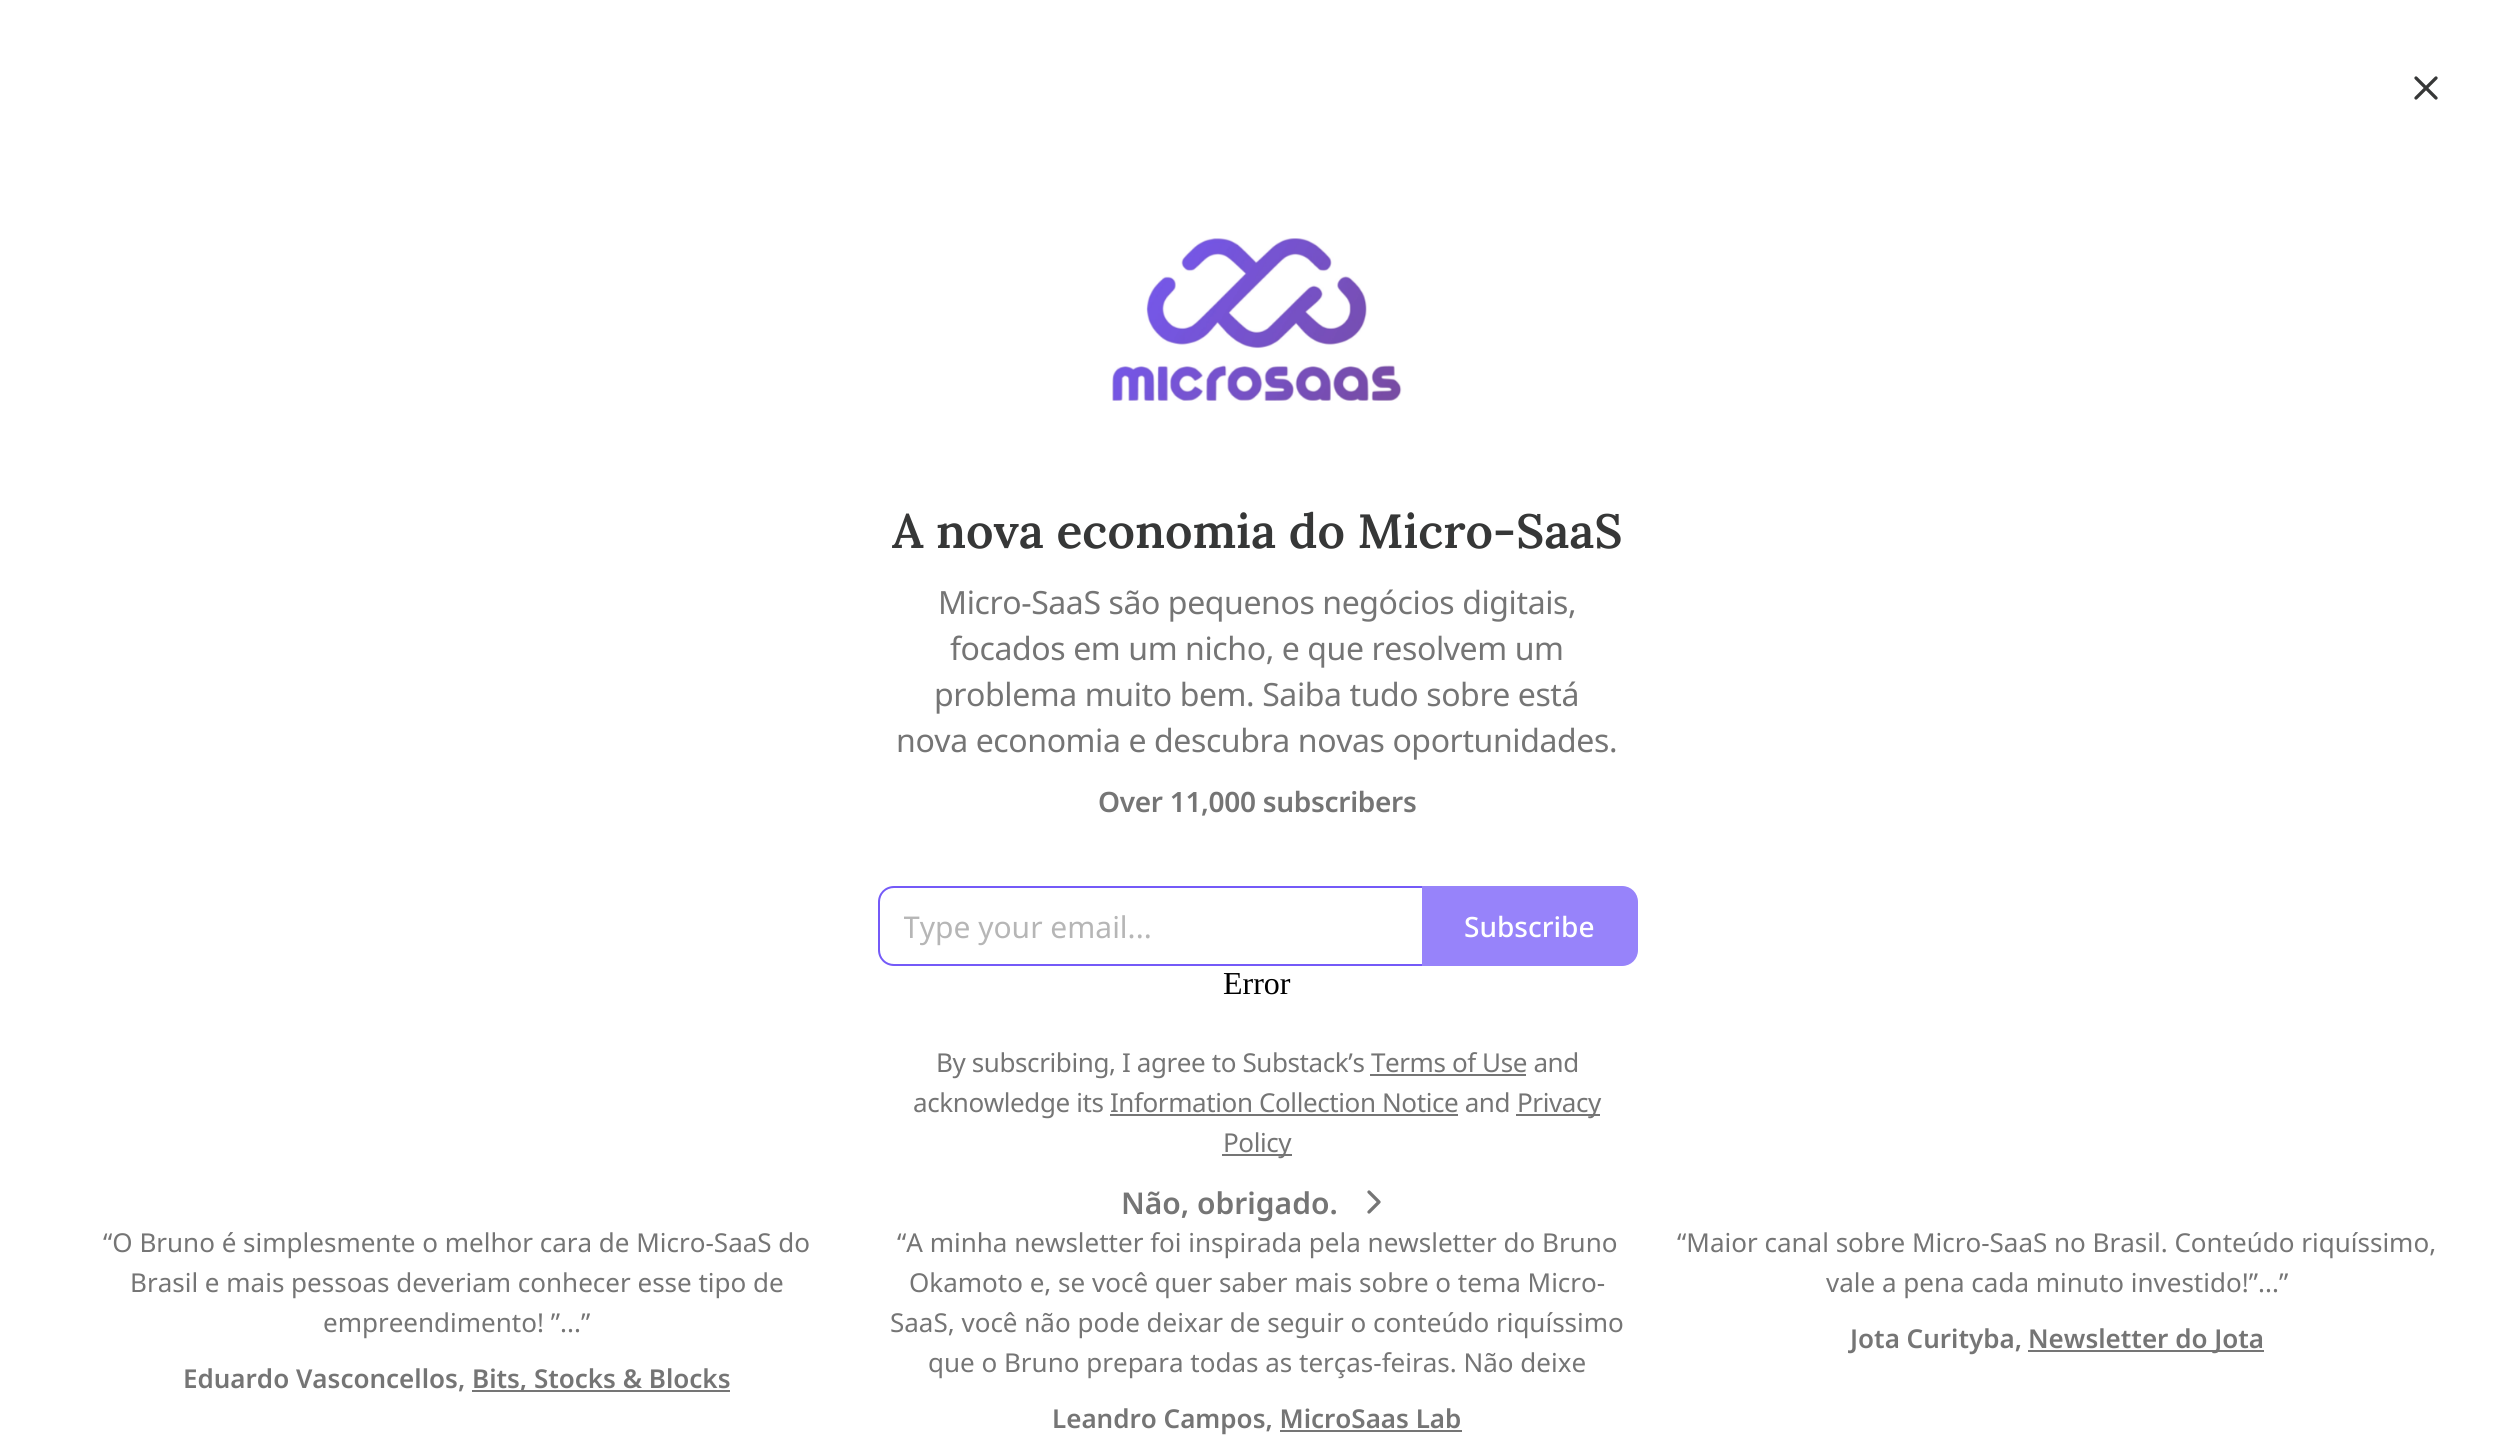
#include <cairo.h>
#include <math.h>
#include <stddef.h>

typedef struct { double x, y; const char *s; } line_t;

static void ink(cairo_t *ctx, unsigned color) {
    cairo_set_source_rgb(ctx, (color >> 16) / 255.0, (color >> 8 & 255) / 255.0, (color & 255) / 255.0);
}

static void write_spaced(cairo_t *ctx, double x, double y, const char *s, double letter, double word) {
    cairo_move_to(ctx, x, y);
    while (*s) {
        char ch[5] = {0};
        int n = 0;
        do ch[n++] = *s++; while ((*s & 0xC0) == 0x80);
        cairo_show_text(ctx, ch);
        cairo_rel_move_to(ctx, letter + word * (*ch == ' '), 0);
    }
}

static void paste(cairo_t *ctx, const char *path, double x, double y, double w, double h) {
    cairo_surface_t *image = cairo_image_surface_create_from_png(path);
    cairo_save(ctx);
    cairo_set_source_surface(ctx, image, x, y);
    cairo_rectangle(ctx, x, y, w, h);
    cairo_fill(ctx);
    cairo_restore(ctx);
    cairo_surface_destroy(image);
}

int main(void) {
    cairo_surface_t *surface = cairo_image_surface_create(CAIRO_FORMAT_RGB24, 2513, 1444);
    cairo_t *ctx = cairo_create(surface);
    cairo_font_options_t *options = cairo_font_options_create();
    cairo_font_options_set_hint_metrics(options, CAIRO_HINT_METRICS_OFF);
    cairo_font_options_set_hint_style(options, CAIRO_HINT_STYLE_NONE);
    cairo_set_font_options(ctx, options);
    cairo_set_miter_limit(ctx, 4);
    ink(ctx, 0xFFFFFF);
    cairo_paint(ctx);
    cairo_new_path(ctx);
    cairo_move_to(ctx, 2436, 78);
    cairo_line_to(ctx, 2416, 98);
    cairo_move_to(ctx, 2416, 78);
    cairo_line_to(ctx, 2436, 98);
    ink(ctx, 0x363737);
    cairo_set_line_width(ctx, 3.3);
    cairo_set_line_cap(ctx, CAIRO_LINE_CAP_ROUND);
    cairo_set_line_join(ctx, CAIRO_LINE_JOIN_ROUND);
    cairo_stroke(ctx);
    paste(ctx, "media/1.png", 1112, 238, 290, 163);
    cairo_select_font_face(ctx, "Lora SemiBold", CAIRO_FONT_SLANT_NORMAL, CAIRO_FONT_WEIGHT_NORMAL);
    cairo_set_font_size(ctx, 48);
    cairo_move_to(ctx, 892, 548);
    cairo_show_text(ctx, "A nova economia do Micro-SaaS");
    cairo_select_font_face(ctx, "Noto Sans", CAIRO_FONT_SLANT_NORMAL, CAIRO_FONT_WEIGHT_NORMAL);
    cairo_set_font_size(ctx, 32);
    ink(ctx, 0x757575);
    {
        static const line_t items[] = {
            {938, 614, "Micro-SaaS são pequenos negócios digitais,"},
            {950, 660, "focados em um nicho, e que resolvem um"},
            {934, 706, "problema muito bem. Saiba tudo sobre está"},
            {896, 752, "nova economia e descubra novas oportunidades."},
        };
        for (size_t i = 0; i < sizeof items / sizeof *items; i++) {
            write_spaced(ctx, items[i].x, items[i].y, items[i].s, -0.4, 0);
        }
    }
    cairo_select_font_face(ctx, "Noto Sans SemiBold", CAIRO_FONT_SLANT_NORMAL, CAIRO_FONT_WEIGHT_NORMAL);
    cairo_set_font_size(ctx, 28);
    write_spaced(ctx, 1098, 812, "Over 11,000 subscribers", -0.3, 0);
    ink(ctx, 0x745AF8);
    cairo_set_fill_rule(ctx, CAIRO_FILL_RULE_EVEN_ODD);
    cairo_new_path(ctx);
    cairo_move_to(ctx, 894, 886);
    cairo_line_to(ctx, 1422, 886);
    cairo_line_to(ctx, 1422, 966);
    cairo_line_to(ctx, 894, 966);
    cairo_curve_to(ctx, 885, 966, 878, 959, 878, 950);
    cairo_line_to(ctx, 878, 902);
    cairo_curve_to(ctx, 878, 893, 885, 886, 894, 886);
    cairo_close_path(ctx);
    cairo_move_to(ctx, 894, 888);
    cairo_line_to(ctx, 1422, 888);
    cairo_line_to(ctx, 1422, 964);
    cairo_line_to(ctx, 894, 964);
    cairo_curve_to(ctx, 886, 964, 880, 958, 880, 950);
    cairo_line_to(ctx, 880, 902);
    cairo_curve_to(ctx, 880, 894, 886, 888, 894, 888);
    cairo_close_path(ctx);
    cairo_fill(ctx);
    cairo_save(ctx);
    cairo_set_fill_rule(ctx, CAIRO_FILL_RULE_WINDING);
    cairo_rectangle(ctx, 904, 906, 494, 40);
    cairo_clip(ctx);
    cairo_select_font_face(ctx, "Noto Sans", CAIRO_FONT_SLANT_NORMAL, CAIRO_FONT_WEIGHT_NORMAL);
    cairo_set_font_size(ctx, 30);
    ink(ctx, 0xB6B6B6);
    cairo_move_to(ctx, 903, 938);
    cairo_show_text(ctx, "Type your email...");
    cairo_restore(ctx);
    ink(ctx, 0x9783FA);
    cairo_new_path(ctx);
    cairo_move_to(ctx, 1423, 887);
    cairo_line_to(ctx, 1622, 887);
    cairo_curve_to(ctx, 1630.5, 887, 1637, 893.5, 1637, 902);
    cairo_line_to(ctx, 1637, 950);
    cairo_curve_to(ctx, 1637, 958.5, 1630.5, 965, 1622, 965);
    cairo_line_to(ctx, 1423, 965);
    cairo_close_path(ctx);
    cairo_fill_preserve(ctx);
    cairo_set_line_width(ctx, 2);
    cairo_set_line_cap(ctx, CAIRO_LINE_CAP_BUTT);
    cairo_set_line_join(ctx, CAIRO_LINE_JOIN_MITER);
    cairo_stroke(ctx);
    cairo_select_font_face(ctx, "Noto Sans Medium", CAIRO_FONT_SLANT_NORMAL, CAIRO_FONT_WEIGHT_NORMAL);
    ink(ctx, 0xFFFFFF);
    cairo_move_to(ctx, 1464, 937);
    cairo_show_text(ctx, "Subscribe");
    cairo_select_font_face(ctx, "Liberation Serif", CAIRO_FONT_SLANT_NORMAL, CAIRO_FONT_WEIGHT_NORMAL);
    cairo_set_font_size(ctx, 32);
    ink(ctx, 0x000000);
    cairo_move_to(ctx, 1223, 994);
    cairo_show_text(ctx, "Error");
    cairo_select_font_face(ctx, "Noto Sans", CAIRO_FONT_SLANT_NORMAL, CAIRO_FONT_WEIGHT_NORMAL);
    cairo_set_font_size(ctx, 26);
    ink(ctx, 0x757575);
    write_spaced(ctx, 936, 1072, "By subscribing, I agree to Substack’s Terms of Use and", -0.4, 0);
    cairo_rectangle(ctx, 1370, 1074, 156, 2);
    cairo_fill(ctx);
    write_spaced(ctx, 913, 1112, "acknowledge its Information Collection Notice and", -0.4, 0);
    cairo_rectangle(ctx, 1516, 1114, 84, 2);
    cairo_fill(ctx);
    write_spaced(ctx, 1517, 1112, "Privacy", -0.4, 0);
    cairo_rectangle(ctx, 1110, 1114, 348, 2);
    cairo_fill(ctx);
    cairo_rectangle(ctx, 1222, 1154, 70, 2);
    cairo_fill(ctx);
    write_spaced(ctx, 1223, 1152, "Policy", -0.4, 0);
    cairo_select_font_face(ctx, "Noto Sans SemiBold", CAIRO_FONT_SLANT_NORMAL, CAIRO_FONT_WEIGHT_NORMAL);
    cairo_set_font_size(ctx, 30);
    cairo_move_to(ctx, 1121, 1214);
    cairo_show_text(ctx, "Não, obrigado.");
    cairo_new_path(ctx);
    cairo_move_to(ctx, 1369, 1212);
    cairo_line_to(ctx, 1379, 1202);
    cairo_line_to(ctx, 1369, 1192);
    cairo_set_line_width(ctx, 3.3);
    cairo_set_line_cap(ctx, CAIRO_LINE_CAP_ROUND);
    cairo_set_line_join(ctx, CAIRO_LINE_JOIN_ROUND);
    cairo_stroke(ctx);
    cairo_select_font_face(ctx, "Noto Sans", CAIRO_FONT_SLANT_NORMAL, CAIRO_FONT_WEIGHT_NORMAL);
    cairo_set_font_size(ctx, 26);
    {
        static const line_t items[] = {
            {103, 1252, "“O Bruno é simplesmente o melhor cara de Micro-SaaS do"},
            {130, 1292, "Brasil e mais pessoas deveriam conhecer esse tipo de"},
            {323, 1332, "empreendimento! ”...”"},
        };
        for (size_t i = 0; i < sizeof items / sizeof *items; i++) {
            cairo_move_to(ctx, items[i].x, items[i].y);
            cairo_show_text(ctx, items[i].s);
        }
    }
    cairo_select_font_face(ctx, "Noto Sans SemiBold", CAIRO_FONT_SLANT_NORMAL, CAIRO_FONT_WEIGHT_NORMAL);
    cairo_move_to(ctx, 183, 1388);
    cairo_show_text(ctx, "Eduardo Vasconcellos,");
    cairo_rectangle(ctx, 472, 1390, 258, 2);
    cairo_fill(ctx);
    cairo_move_to(ctx, 472, 1388);
    cairo_show_text(ctx, "Bits, Stocks & Blocks");
    cairo_select_font_face(ctx, "Noto Sans", CAIRO_FONT_SLANT_NORMAL, CAIRO_FONT_WEIGHT_NORMAL);
    {
        static const line_t items[] = {
            {897, 1252, "“A minha newsletter foi inspirada pela newsletter do Bruno"},
            {909, 1292, "Okamoto e, se você quer saber mais sobre o tema Micro-"},
            {890, 1332, "SaaS, você não pode deixar de seguir o conteúdo riquíssimo"},
            {928, 1372, "que o Bruno prepara todas as terças-feiras. Não deixe"},
        };
        for (size_t i = 0; i < sizeof items / sizeof *items; i++) {
            cairo_move_to(ctx, items[i].x, items[i].y);
            cairo_show_text(ctx, items[i].s);
        }
    }
    cairo_select_font_face(ctx, "Noto Sans SemiBold", CAIRO_FONT_SLANT_NORMAL, CAIRO_FONT_WEIGHT_NORMAL);
    cairo_move_to(ctx, 1052, 1428);
    cairo_show_text(ctx, "Leandro Campos, MicroSaas Lab");
    cairo_rectangle(ctx, 1280, 1430, 182, 2);
    cairo_fill(ctx);
    cairo_select_font_face(ctx, "Noto Sans", CAIRO_FONT_SLANT_NORMAL, CAIRO_FONT_WEIGHT_NORMAL);
    cairo_move_to(ctx, 1677, 1252);
    cairo_show_text(ctx, "“Maior canal sobre Micro-SaaS no Brasil. Conteúdo riquíssimo,");
    cairo_move_to(ctx, 1826, 1292);
    cairo_show_text(ctx, "vale a pena cada minuto investido!”...”");
    cairo_select_font_face(ctx, "Noto Sans SemiBold", CAIRO_FONT_SLANT_NORMAL, CAIRO_FONT_WEIGHT_NORMAL);
    cairo_move_to(ctx, 1850, 1348);
    cairo_show_text(ctx, "Jota Curityba,");
    cairo_rectangle(ctx, 2028, 1350, 236, 2);
    cairo_fill(ctx);
    cairo_move_to(ctx, 2028, 1348);
    cairo_show_text(ctx, "Newsletter do Jota");
    cairo_surface_write_to_png(surface, "image.png");
    cairo_font_options_destroy(options);
    cairo_destroy(ctx);
    cairo_surface_destroy(surface);
    return 0;
}
